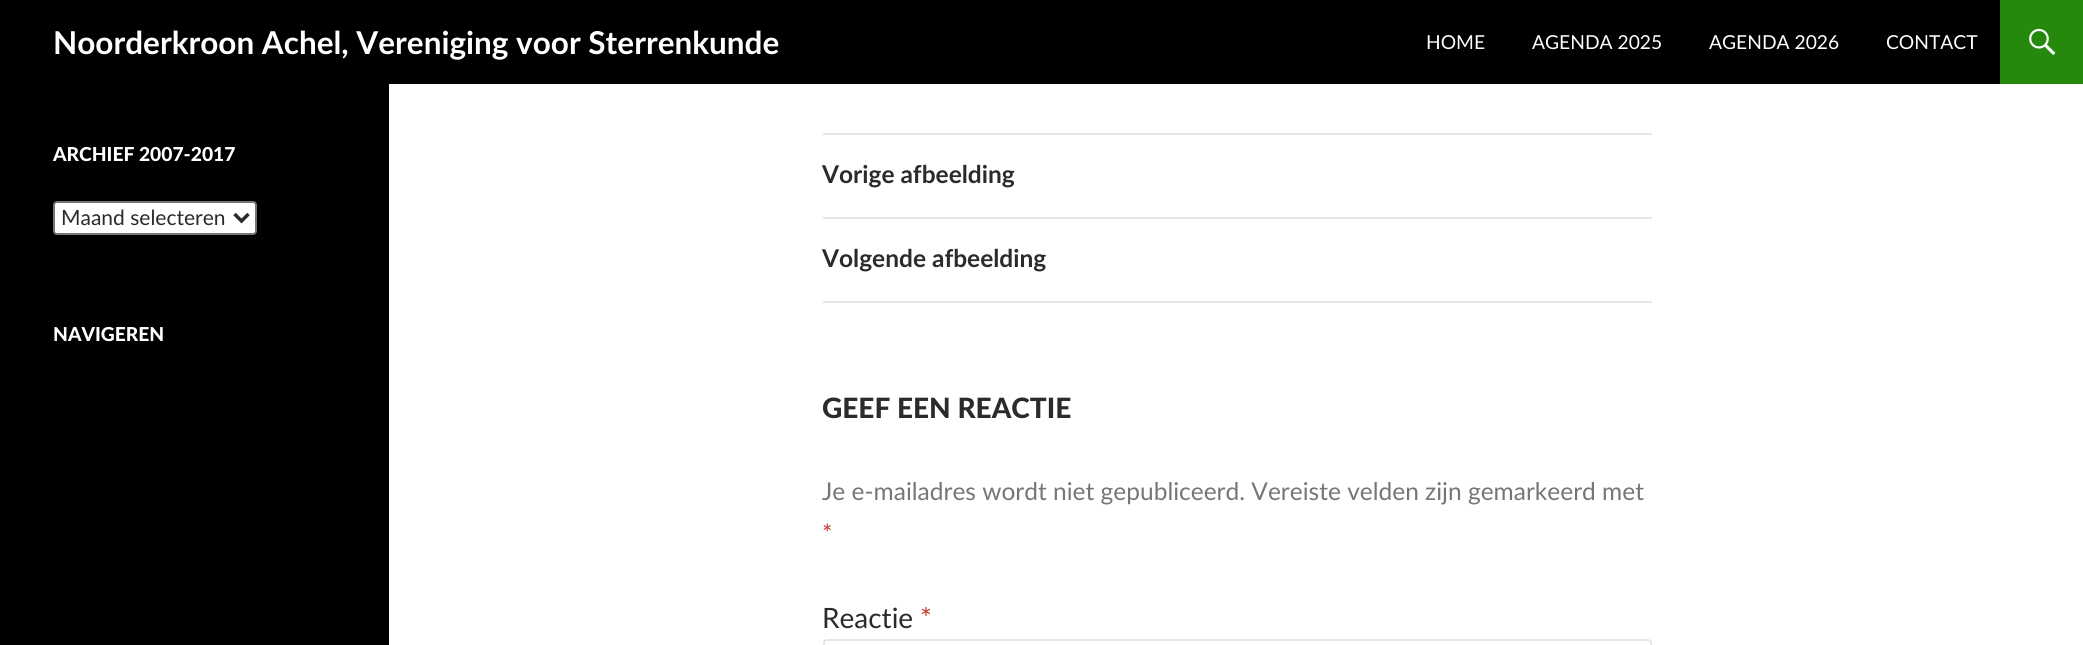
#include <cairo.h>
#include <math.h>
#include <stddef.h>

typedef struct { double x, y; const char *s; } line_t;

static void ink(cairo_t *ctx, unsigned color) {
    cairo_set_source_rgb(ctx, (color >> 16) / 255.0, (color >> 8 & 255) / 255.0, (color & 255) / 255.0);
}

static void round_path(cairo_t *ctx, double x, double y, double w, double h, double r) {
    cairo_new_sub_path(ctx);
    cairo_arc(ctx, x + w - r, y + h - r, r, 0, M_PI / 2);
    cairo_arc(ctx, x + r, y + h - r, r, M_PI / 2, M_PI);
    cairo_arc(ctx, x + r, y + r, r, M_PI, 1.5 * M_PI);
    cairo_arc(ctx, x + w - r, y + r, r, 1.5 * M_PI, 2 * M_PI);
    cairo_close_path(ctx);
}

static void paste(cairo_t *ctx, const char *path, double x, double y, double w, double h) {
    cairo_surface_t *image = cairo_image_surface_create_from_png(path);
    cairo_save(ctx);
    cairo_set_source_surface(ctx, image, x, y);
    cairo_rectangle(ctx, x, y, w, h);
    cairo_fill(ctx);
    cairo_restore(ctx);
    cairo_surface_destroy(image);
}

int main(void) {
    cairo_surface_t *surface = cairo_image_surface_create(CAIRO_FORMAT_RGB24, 2083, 645);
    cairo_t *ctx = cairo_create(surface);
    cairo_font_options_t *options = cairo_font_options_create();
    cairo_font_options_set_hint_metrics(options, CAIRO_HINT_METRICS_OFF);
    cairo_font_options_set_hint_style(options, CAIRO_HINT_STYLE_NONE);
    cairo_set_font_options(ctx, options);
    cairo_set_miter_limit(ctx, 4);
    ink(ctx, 0xFFFFFF);
    cairo_paint(ctx);
    ink(ctx, 0x000000);
    cairo_rectangle(ctx, 0, 0, 2000, 84);
    cairo_fill(ctx);
    cairo_select_font_face(ctx, "Lato", CAIRO_FONT_SLANT_NORMAL, CAIRO_FONT_WEIGHT_BOLD);
    cairo_set_font_size(ctx, 31.5);
    ink(ctx, 0xFFFFFF);
    cairo_move_to(ctx, 53, 54);
    cairo_show_text(ctx, "Noorderkroon Achel, Vereniging voor Sterrenkunde");
    cairo_select_font_face(ctx, "Lato", CAIRO_FONT_SLANT_NORMAL, CAIRO_FONT_WEIGHT_NORMAL);
    cairo_set_font_size(ctx, 19.25);
    {
        static const line_t items[] = {
            {1426, 49, "HOME"},
            {1532, 49, "AGENDA 2025"},
            {1709, 49, "AGENDA 2026"},
            {1886, 49, "CONTACT"},
        };
        for (size_t i = 0; i < sizeof items / sizeof *items; i++) {
            cairo_move_to(ctx, items[i].x, items[i].y);
            cairo_show_text(ctx, items[i].s);
        }
    }
    ink(ctx, 0x24890D);
    cairo_rectangle(ctx, 2000, 0, 83, 84);
    cairo_fill(ctx);
    paste(ctx, "media/1.png", 2029, 28, 27, 27);
    ink(ctx, 0x000000);
    cairo_rectangle(ctx, 0, 84, 389, 561);
    cairo_fill(ctx);
    cairo_select_font_face(ctx, "Lato Black", CAIRO_FONT_SLANT_NORMAL, CAIRO_FONT_WEIGHT_NORMAL);
    ink(ctx, 0xFFFFFF);
    cairo_move_to(ctx, 53, 161);
    cairo_show_text(ctx, "ARCHIEF 2007-2017");
    round_path(ctx, 54, 202, 202, 32, 3);
    cairo_fill_preserve(ctx);
    ink(ctx, 0x767676);
    cairo_stroke(ctx);
    cairo_new_path(ctx);
    cairo_move_to(ctx, 234.5, 214);
    cairo_line_to(ctx, 241.5, 221);
    cairo_line_to(ctx, 248.5, 214);
    ink(ctx, 0x2B2B2B);
    cairo_set_line_width(ctx, 3.5);
    cairo_stroke(ctx);
    cairo_select_font_face(ctx, "Lato", CAIRO_FONT_SLANT_NORMAL, CAIRO_FONT_WEIGHT_NORMAL);
    cairo_set_font_size(ctx, 21);
    cairo_move_to(ctx, 61, 225);
    cairo_show_text(ctx, "Maand selecteren");
    cairo_select_font_face(ctx, "Lato Black", CAIRO_FONT_SLANT_NORMAL, CAIRO_FONT_WEIGHT_NORMAL);
    cairo_set_font_size(ctx, 19.25);
    ink(ctx, 0xFFFFFF);
    cairo_move_to(ctx, 53, 341);
    cairo_show_text(ctx, "NAVIGEREN");
    ink(ctx, 0xE6E6E6);
    cairo_rectangle(ctx, 823, 133, 829, 2);
    cairo_fill(ctx);
    cairo_rectangle(ctx, 823, 217, 829, 2);
    cairo_fill(ctx);
    cairo_select_font_face(ctx, "Lato", CAIRO_FONT_SLANT_NORMAL, CAIRO_FONT_WEIGHT_BOLD);
    cairo_set_font_size(ctx, 24.5);
    ink(ctx, 0x2B2B2B);
    cairo_move_to(ctx, 822, 183);
    cairo_show_text(ctx, "Vorige afbeelding");
    ink(ctx, 0xE6E6E6);
    cairo_rectangle(ctx, 823, 301, 829, 2);
    cairo_fill(ctx);
    ink(ctx, 0x2B2B2B);
    cairo_move_to(ctx, 822, 267);
    cairo_show_text(ctx, "Volgende afbeelding");
    cairo_select_font_face(ctx, "Lato Black", CAIRO_FONT_SLANT_NORMAL, CAIRO_FONT_WEIGHT_NORMAL);
    cairo_set_font_size(ctx, 28);
    cairo_move_to(ctx, 822, 418);
    cairo_show_text(ctx, "GEEF EEN REACTIE");
    cairo_select_font_face(ctx, "Lato", CAIRO_FONT_SLANT_NORMAL, CAIRO_FONT_WEIGHT_NORMAL);
    cairo_set_font_size(ctx, 24.5);
    ink(ctx, 0x767676);
    cairo_move_to(ctx, 822, 500);
    cairo_show_text(ctx, "Je e-mailadres wordt niet gepubliceerd. Vereiste velden zijn gemarkeerd met");
    ink(ctx, 0xC0392B);
    cairo_move_to(ctx, 822, 542);
    cairo_show_text(ctx, "*");
    cairo_set_font_size(ctx, 28);
    ink(ctx, 0x2B2B2B);
    cairo_move_to(ctx, 822, 628);
    cairo_show_text(ctx, "Reactie");
    ink(ctx, 0xC0392B);
    cairo_move_to(ctx, 920, 628);
    cairo_show_text(ctx, "*");
    round_path(ctx, 824, 640, 827, 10, 3);
    ink(ctx, 0xE6E6E6);
    cairo_set_line_width(ctx, 2);
    cairo_stroke(ctx);
    cairo_surface_write_to_png(surface, "image.png");
    cairo_font_options_destroy(options);
    cairo_destroy(ctx);
    cairo_surface_destroy(surface);
    return 0;
}
